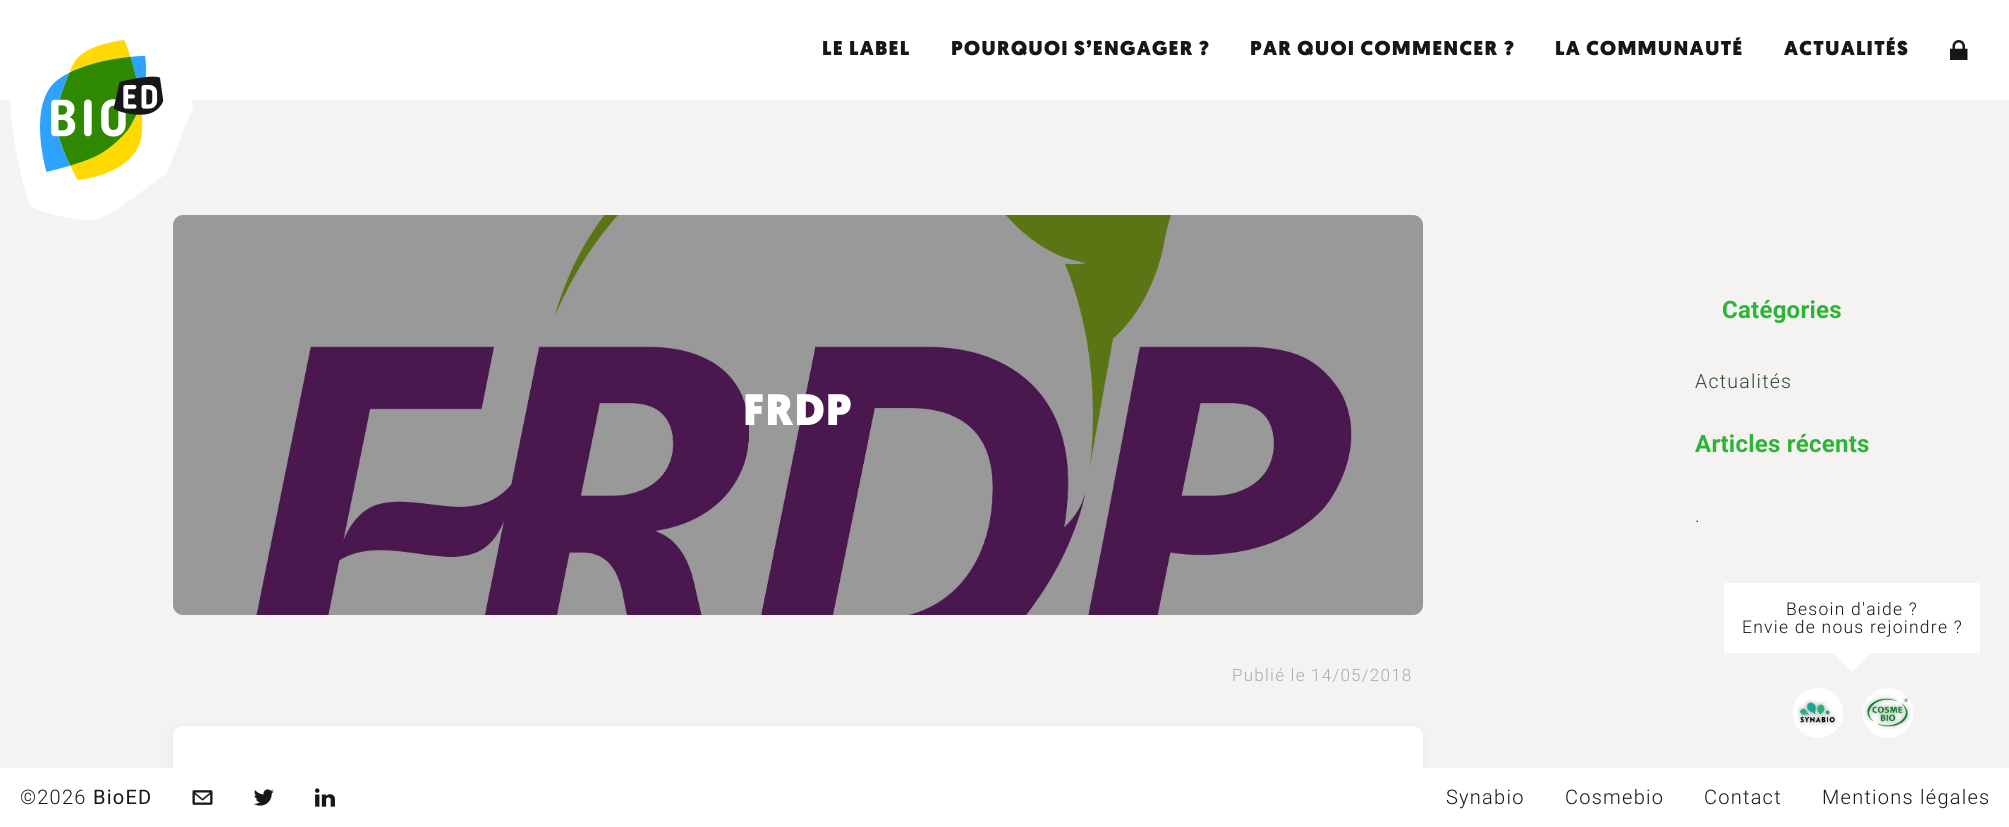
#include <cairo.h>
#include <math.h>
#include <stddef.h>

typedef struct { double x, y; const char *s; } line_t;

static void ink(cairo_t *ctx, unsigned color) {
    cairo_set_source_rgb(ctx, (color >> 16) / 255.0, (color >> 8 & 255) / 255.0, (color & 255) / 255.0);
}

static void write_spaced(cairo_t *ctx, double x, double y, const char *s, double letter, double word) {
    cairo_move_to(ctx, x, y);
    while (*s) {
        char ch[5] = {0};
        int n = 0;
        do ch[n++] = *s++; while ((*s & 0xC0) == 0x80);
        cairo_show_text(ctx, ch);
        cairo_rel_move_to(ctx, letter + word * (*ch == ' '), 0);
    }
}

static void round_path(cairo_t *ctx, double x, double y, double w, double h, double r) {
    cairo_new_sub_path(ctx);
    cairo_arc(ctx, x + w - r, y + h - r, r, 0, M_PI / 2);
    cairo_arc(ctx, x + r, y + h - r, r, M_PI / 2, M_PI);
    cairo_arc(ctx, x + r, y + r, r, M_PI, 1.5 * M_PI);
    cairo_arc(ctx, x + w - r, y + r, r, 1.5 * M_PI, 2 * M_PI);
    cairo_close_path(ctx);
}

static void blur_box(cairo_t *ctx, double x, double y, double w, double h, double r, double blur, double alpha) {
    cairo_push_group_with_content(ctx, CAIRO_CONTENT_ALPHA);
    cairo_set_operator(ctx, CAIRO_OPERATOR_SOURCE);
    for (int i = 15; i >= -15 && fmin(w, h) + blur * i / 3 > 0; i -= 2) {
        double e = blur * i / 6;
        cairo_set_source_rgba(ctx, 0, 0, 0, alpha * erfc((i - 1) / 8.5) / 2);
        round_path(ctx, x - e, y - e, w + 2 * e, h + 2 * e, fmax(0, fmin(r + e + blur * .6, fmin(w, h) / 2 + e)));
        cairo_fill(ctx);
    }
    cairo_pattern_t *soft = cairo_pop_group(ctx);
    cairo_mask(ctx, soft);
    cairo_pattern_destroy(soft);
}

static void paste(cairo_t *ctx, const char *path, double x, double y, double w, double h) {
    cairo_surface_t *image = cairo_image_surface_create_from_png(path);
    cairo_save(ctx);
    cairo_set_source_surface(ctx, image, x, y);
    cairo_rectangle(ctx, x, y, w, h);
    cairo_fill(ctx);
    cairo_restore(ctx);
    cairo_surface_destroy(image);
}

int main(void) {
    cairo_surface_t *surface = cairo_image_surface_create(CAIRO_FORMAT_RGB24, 2009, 827);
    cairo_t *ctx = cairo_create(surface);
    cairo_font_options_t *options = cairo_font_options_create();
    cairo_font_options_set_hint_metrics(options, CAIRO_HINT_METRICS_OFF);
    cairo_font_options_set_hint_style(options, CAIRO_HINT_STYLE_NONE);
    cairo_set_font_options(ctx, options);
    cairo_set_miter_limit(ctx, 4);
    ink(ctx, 0xF4F3F2);
    cairo_paint(ctx);
    ink(ctx, 0xFFFFFF);
    cairo_rectangle(ctx, 0, 0, 2009, 100);
    cairo_fill(ctx);
    paste(ctx, "media/3.png", 172, 215, 1251, 400);
    cairo_set_source_rgba(ctx, 0, 0, 0, 0.4);
    round_path(ctx, 173, 215, 1250, 400, 10);
    cairo_fill(ctx);
    ink(ctx, 0xFFFFFF);
    cairo_new_path(ctx);
    cairo_move_to(ctx, 22, 179);
    cairo_curve_to(ctx, 24, 185, 27, 201, 31, 206);
    cairo_curve_to(ctx, 36, 212, 74, 220, 84, 220);
    cairo_curve_to(ctx, 91, 220, 97, 220, 103, 217);
    cairo_curve_to(ctx, 112, 213, 121, 207, 129, 201);
    cairo_line_to(ctx, 167, 173);
    cairo_line_to(ctx, 183, 131);
    cairo_curve_to(ctx, 185, 126, 194, 108, 193, 104);
    cairo_line_to(ctx, 186, 90);
    cairo_line_to(ctx, 100, 12);
    cairo_curve_to(ctx, 94, 9, 79, 8, 72, 8);
    cairo_curve_to(ctx, 62, 6, 52, 5, 41, 5);
    cairo_curve_to(ctx, 40, 5, 37, 5, 36, 6);
    cairo_curve_to(ctx, 33, 9, 33, 14, 32, 18);
    cairo_line_to(ctx, 15, 75);
    cairo_line_to(ctx, 11, 92);
    cairo_curve_to(ctx, 9, 122, 16, 150, 22, 179);
    cairo_close_path(ctx);
    cairo_fill(ctx);
    paste(ctx, "media/1.png", 40, 40, 124, 140);
    cairo_select_font_face(ctx, "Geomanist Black", CAIRO_FONT_SLANT_NORMAL, CAIRO_FONT_WEIGHT_NORMAL);
    cairo_set_font_size(ctx, 20);
    ink(ctx, 0x181716);
    {
        static const line_t items[] = {
            {822, 55, "LE LABEL"},
            {951, 55, "POURQUOI S’ENGAGER ?"},
            {1250, 55, "PAR QUOI COMMENCER ?"},
            {1555, 55, "LA COMMUNAUTÉ"},
            {1784, 55, "ACTUALITÉS"},
        };
        for (size_t i = 0; i < sizeof items / sizeof *items; i++) {
            write_spaced(ctx, items[i].x, items[i].y, items[i].s, 1.25, 0);
        }
    }
    paste(ctx, "media/2.png", 1950, 40, 18, 20);
    cairo_set_font_size(ctx, 44);
    ink(ctx, 0xFFFFFF);
    write_spaced(ctx, 743, 425, "FRDP", 1.25, 0);
    cairo_select_font_face(ctx, "Roboto Light", CAIRO_FONT_SLANT_NORMAL, CAIRO_FONT_WEIGHT_NORMAL);
    cairo_set_font_size(ctx, 17);
    ink(ctx, 0xAAAAAA);
    write_spaced(ctx, 1232, 681, "Publié le 14/05/2018", 1.25, 0);
    ink(ctx, 0x000000);
    blur_box(ctx, 173, 729, 1250, 60, 10, 5, 0.06);
    ink(ctx, 0xFFFFFF);
    round_path(ctx, 173, 726, 1250, 60, 10);
    cairo_fill(ctx);
    cairo_select_font_face(ctx, "Roboto", CAIRO_FONT_SLANT_NORMAL, CAIRO_FONT_WEIGHT_BOLD);
    cairo_set_font_size(ctx, 24);
    ink(ctx, 0x2EB435);
    write_spaced(ctx, 1722, 318, "Catégories", 0.25, 0);
    cairo_select_font_face(ctx, "Roboto Light", CAIRO_FONT_SLANT_NORMAL, CAIRO_FONT_WEIGHT_NORMAL);
    cairo_set_font_size(ctx, 19.5);
    ink(ctx, 0x2B4636);
    write_spaced(ctx, 1695, 388, "Actualités", 1.25, 0);
    cairo_select_font_face(ctx, "Roboto", CAIRO_FONT_SLANT_NORMAL, CAIRO_FONT_WEIGHT_BOLD);
    cairo_set_font_size(ctx, 24);
    ink(ctx, 0x2EB435);
    write_spaced(ctx, 1695, 452, "Articles récents", 0.25, 0);
    cairo_select_font_face(ctx, "Roboto Light", CAIRO_FONT_SLANT_NORMAL, CAIRO_FONT_WEIGHT_NORMAL);
    cairo_set_font_size(ctx, 19.5);
    ink(ctx, 0x2B4636);
    write_spaced(ctx, 1695, 522, ".", 1.25, 0);
    ink(ctx, 0xFFFFFF);
    cairo_rectangle(ctx, 1724, 583, 256, 70);
    cairo_fill(ctx);
    cairo_set_font_size(ctx, 17.5);
    ink(ctx, 0x181716);
    write_spaced(ctx, 1786, 615, "Besoin d'aide ?", 1.25, 0);
    write_spaced(ctx, 1742, 633, "Envie de nous rejoindre ?", 1.25, 0);
    ink(ctx, 0xFFFFFF);
    cairo_new_path(ctx);
    cairo_move_to(ctx, 1832, 652);
    cairo_line_to(ctx, 1872, 652);
    cairo_line_to(ctx, 1852, 672);
    cairo_close_path(ctx);
    cairo_fill(ctx);
    cairo_arc(ctx, 1818, 713, 25, 0, 2 * M_PI);
    cairo_fill(ctx);
    paste(ctx, "media/4.png", 1797, 699, 41, 27);
    cairo_arc(ctx, 1888, 713, 25, 0, 2 * M_PI);
    cairo_fill(ctx);
    paste(ctx, "media/5.png", 1864, 695, 47, 35);
    cairo_rectangle(ctx, 0, 768, 2009, 59);
    cairo_fill(ctx);
    cairo_set_font_size(ctx, 20);
    ink(ctx, 0x181716);
    write_spaced(ctx, 20, 804, "©2026", 1.25, 0);
    cairo_select_font_face(ctx, "Roboto", CAIRO_FONT_SLANT_NORMAL, CAIRO_FONT_WEIGHT_NORMAL);
    write_spaced(ctx, 93, 804, "BioED", 1.25, 0);
    paste(ctx, "media/6.png", 192, 790, 21, 15);
    paste(ctx, "media/7.png", 254, 789, 20, 17);
    paste(ctx, "media/8.png", 315, 788, 20, 19);
    cairo_select_font_face(ctx, "Roboto Light", CAIRO_FONT_SLANT_NORMAL, CAIRO_FONT_WEIGHT_NORMAL);
    {
        static const line_t items[] = {
            {1446, 804, "Synabio"},
            {1565, 804, "Cosmebio"},
            {1704, 804, "Contact"},
            {1822, 804, "Mentions légales"},
        };
        for (size_t i = 0; i < sizeof items / sizeof *items; i++) {
            write_spaced(ctx, items[i].x, items[i].y, items[i].s, 1.25, 0);
        }
    }
    cairo_surface_write_to_png(surface, "image.png");
    cairo_font_options_destroy(options);
    cairo_destroy(ctx);
    cairo_surface_destroy(surface);
    return 0;
}
